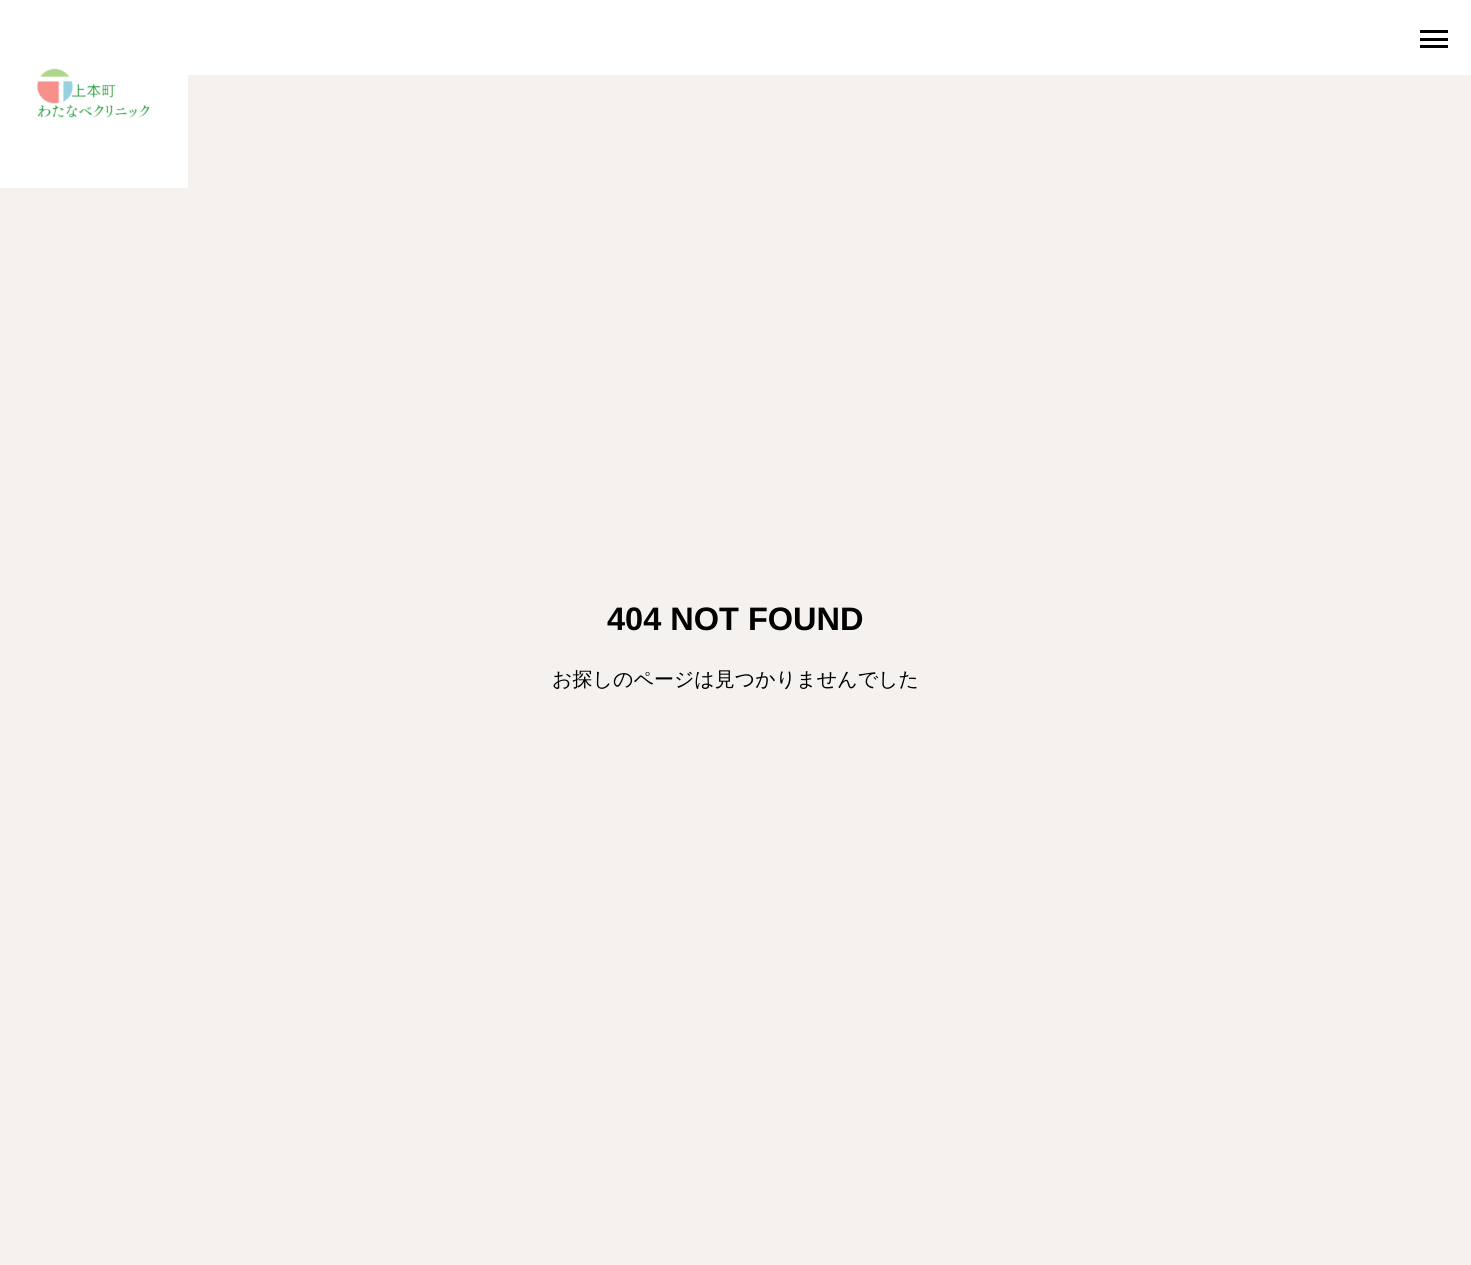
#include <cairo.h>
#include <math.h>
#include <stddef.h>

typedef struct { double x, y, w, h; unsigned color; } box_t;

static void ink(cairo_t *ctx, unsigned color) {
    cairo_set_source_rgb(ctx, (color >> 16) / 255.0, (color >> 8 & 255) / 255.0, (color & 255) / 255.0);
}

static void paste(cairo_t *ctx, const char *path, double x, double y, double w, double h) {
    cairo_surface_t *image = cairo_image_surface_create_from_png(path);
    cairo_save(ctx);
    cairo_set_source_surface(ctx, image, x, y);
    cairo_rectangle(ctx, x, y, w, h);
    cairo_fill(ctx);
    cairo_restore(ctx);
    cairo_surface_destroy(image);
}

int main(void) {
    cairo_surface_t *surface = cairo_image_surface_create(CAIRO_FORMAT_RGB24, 1471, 1265);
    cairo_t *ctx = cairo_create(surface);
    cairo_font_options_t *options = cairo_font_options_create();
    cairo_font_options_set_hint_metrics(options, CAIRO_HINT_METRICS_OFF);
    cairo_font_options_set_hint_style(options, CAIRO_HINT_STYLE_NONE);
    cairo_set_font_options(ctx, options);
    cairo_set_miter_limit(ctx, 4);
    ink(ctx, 0xFFFFFF);
    cairo_paint(ctx);
    {
        static const box_t items[] = {
            {1420, 30, 28, 3, 0x000000},
            {1420, 38, 28, 3, 0x000000},
            {1420, 45, 28, 3, 0x000000},
            {0, 75, 1471, 1190, 0xF4F1EF},
            {0, 75, 188, 113, 0xFFFFFF},
        };
        for (size_t i = 0; i < sizeof items / sizeof *items; i++) {
            ink(ctx, items[i].color);
            cairo_rectangle(ctx, items[i].x, items[i].y, items[i].w, items[i].h);
            cairo_fill(ctx);
        }
    }
    paste(ctx, "media/1.png", 37, 68, 113, 50);
    cairo_select_font_face(ctx, "Liberation Sans", CAIRO_FONT_SLANT_NORMAL, CAIRO_FONT_WEIGHT_BOLD);
    cairo_set_font_size(ctx, 32.5);
    ink(ctx, 0x000000);
    cairo_move_to(ctx, 607, 630);
    cairo_show_text(ctx, "404 NOT FOUND");
    cairo_select_font_face(ctx, "WenQuanYi Zen Hei Medium", CAIRO_FONT_SLANT_NORMAL, CAIRO_FONT_WEIGHT_NORMAL);
    cairo_set_font_size(ctx, 20);
    cairo_move_to(ctx, 552, 686);
    cairo_show_text(ctx, "お探しのページは見つかりませんでした");
    cairo_surface_write_to_png(surface, "image.png");
    cairo_font_options_destroy(options);
    cairo_destroy(ctx);
    cairo_surface_destroy(surface);
    return 0;
}
